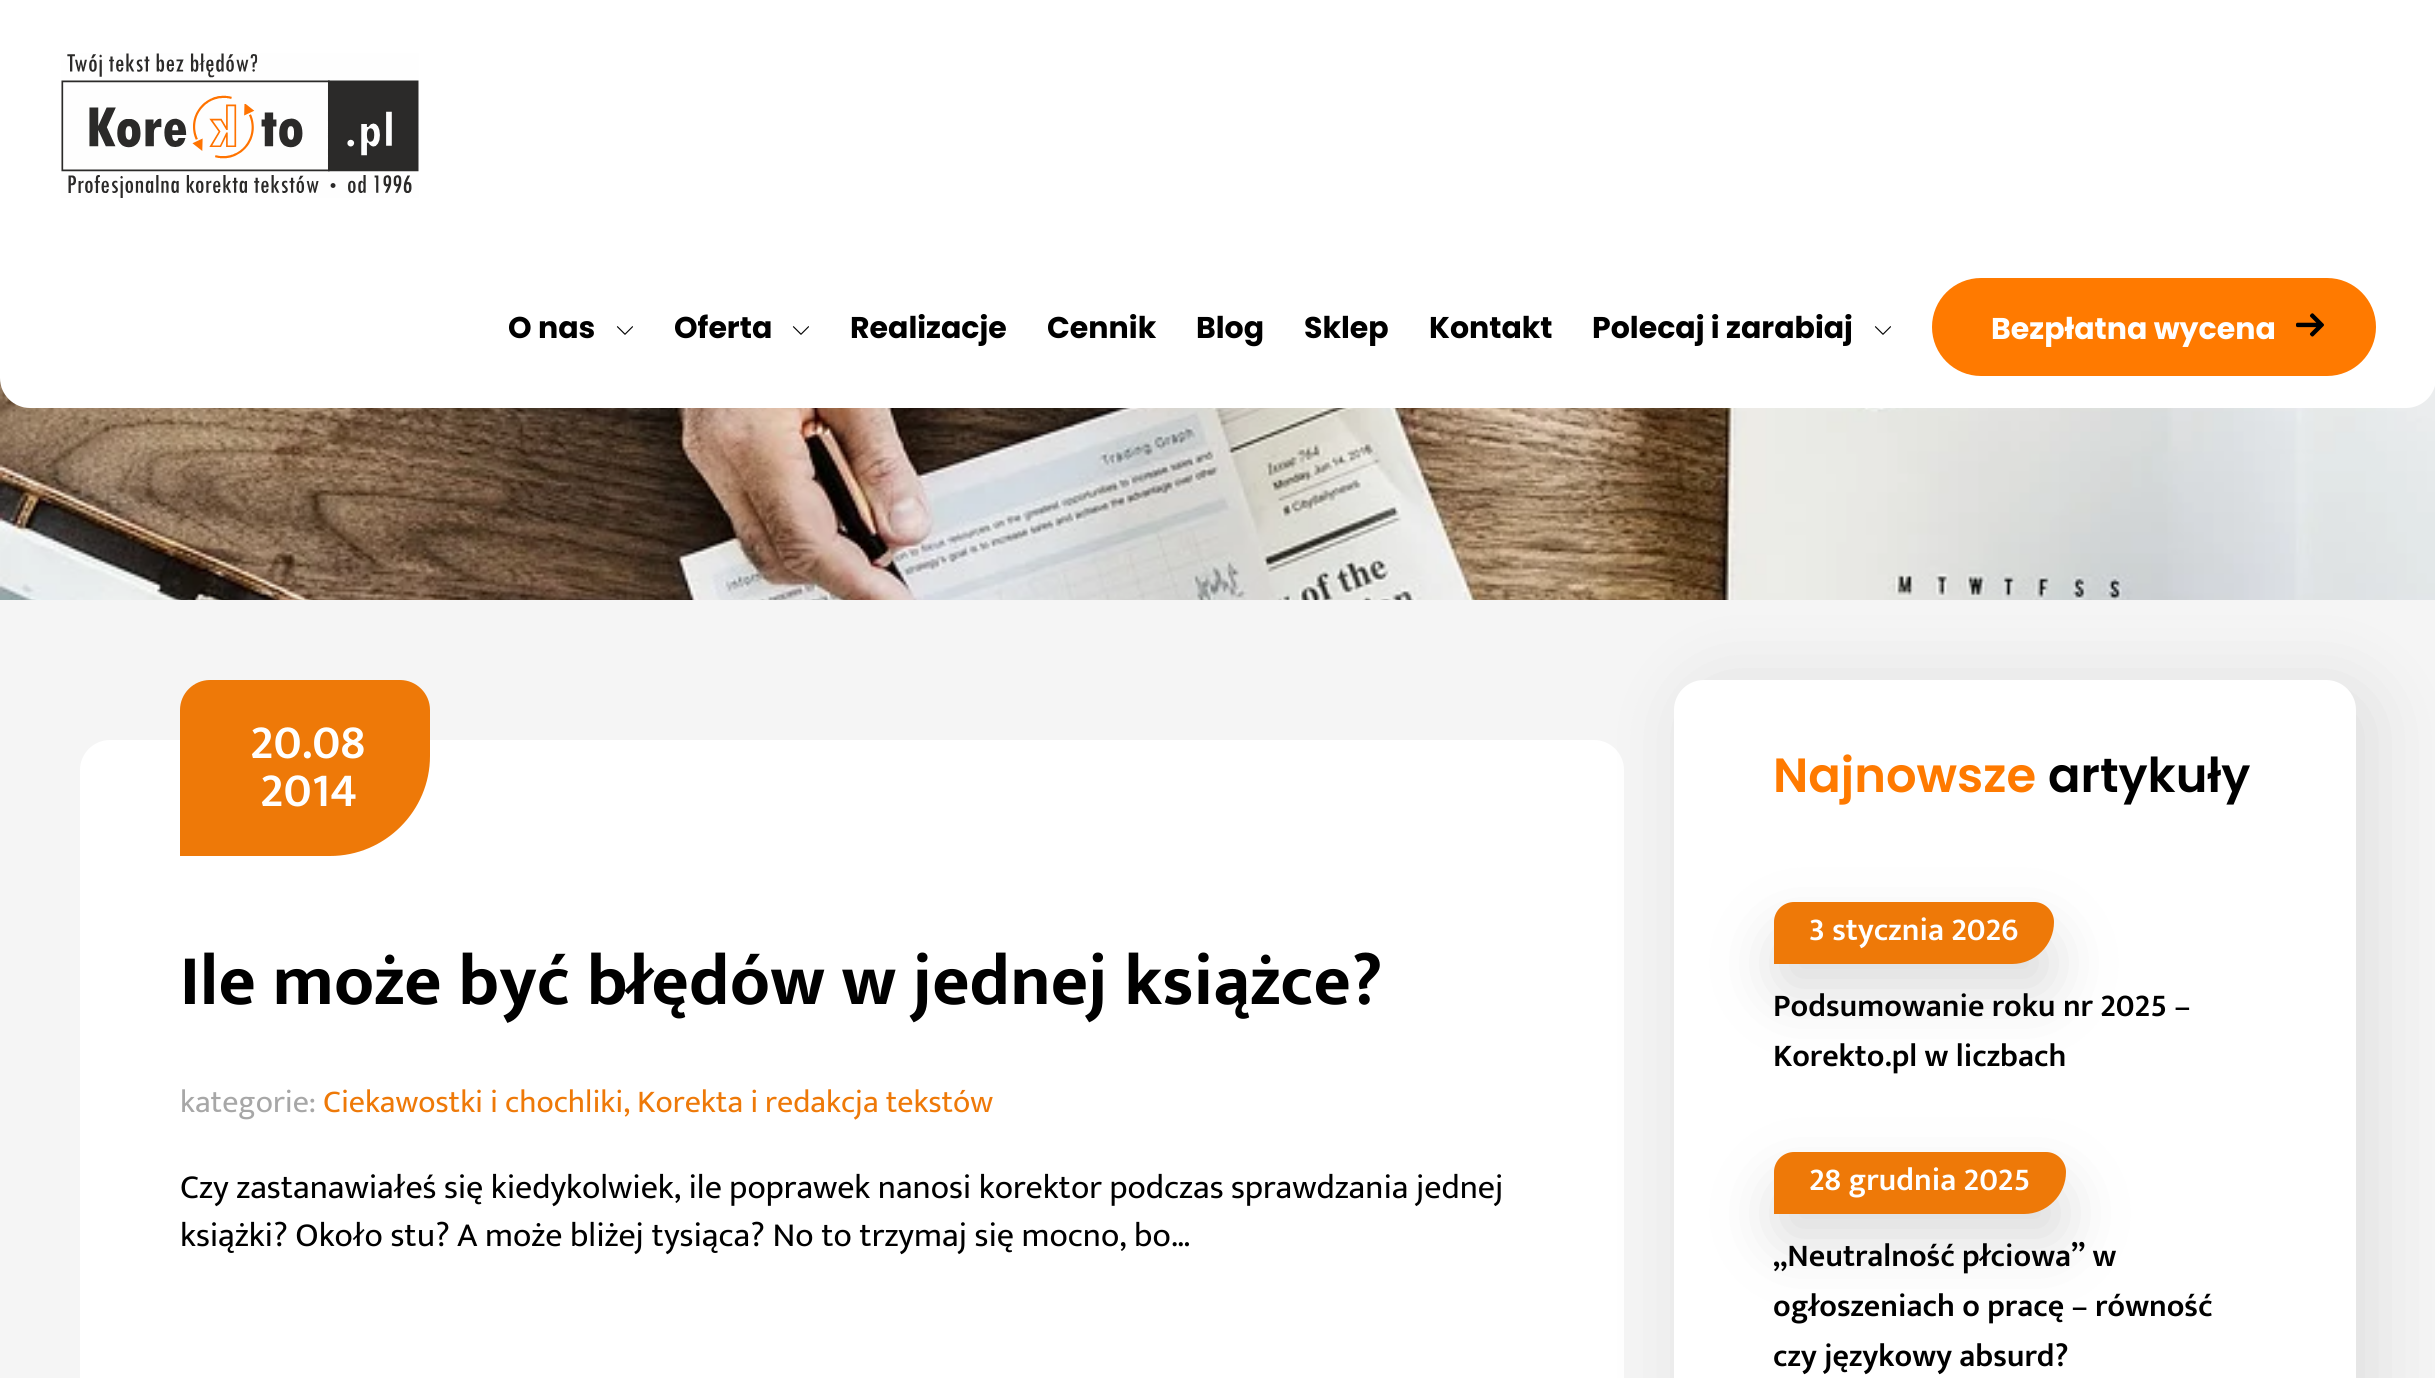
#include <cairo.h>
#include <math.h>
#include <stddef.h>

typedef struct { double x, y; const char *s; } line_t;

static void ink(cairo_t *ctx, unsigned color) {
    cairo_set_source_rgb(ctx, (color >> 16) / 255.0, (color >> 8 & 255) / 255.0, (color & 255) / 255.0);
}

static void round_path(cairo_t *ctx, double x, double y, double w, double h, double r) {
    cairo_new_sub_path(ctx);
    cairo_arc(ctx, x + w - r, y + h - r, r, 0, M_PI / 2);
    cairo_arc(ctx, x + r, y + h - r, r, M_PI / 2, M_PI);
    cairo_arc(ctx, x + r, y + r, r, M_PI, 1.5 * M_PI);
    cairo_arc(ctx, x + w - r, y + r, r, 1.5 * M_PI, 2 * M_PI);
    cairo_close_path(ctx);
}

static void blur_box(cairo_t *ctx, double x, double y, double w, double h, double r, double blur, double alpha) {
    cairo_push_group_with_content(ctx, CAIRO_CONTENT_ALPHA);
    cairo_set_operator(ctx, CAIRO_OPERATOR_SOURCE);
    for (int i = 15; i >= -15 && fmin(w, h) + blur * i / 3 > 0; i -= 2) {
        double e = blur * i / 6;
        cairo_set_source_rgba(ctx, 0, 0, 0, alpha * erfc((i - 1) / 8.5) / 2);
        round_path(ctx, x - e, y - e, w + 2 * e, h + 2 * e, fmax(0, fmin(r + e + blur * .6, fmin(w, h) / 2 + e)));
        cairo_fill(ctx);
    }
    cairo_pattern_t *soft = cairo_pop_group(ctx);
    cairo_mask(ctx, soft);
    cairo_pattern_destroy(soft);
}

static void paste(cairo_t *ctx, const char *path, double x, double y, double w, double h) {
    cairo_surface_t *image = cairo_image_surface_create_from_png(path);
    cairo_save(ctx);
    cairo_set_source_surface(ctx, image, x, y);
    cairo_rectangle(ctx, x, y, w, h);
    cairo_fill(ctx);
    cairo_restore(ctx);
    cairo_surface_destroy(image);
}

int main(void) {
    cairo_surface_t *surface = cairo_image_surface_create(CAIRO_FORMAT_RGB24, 2435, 1378);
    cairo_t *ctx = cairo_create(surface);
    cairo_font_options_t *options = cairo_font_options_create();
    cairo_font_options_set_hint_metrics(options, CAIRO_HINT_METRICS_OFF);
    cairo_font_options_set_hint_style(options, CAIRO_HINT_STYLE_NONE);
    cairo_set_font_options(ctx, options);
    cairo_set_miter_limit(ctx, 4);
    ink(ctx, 0xFFFFFF);
    cairo_paint(ctx);
    paste(ctx, "media/4.png", 0, 378, 2435, 222);
    ink(ctx, 0xFFFFFF);
    cairo_new_path(ctx);
    cairo_move_to(ctx, 0, 0);
    cairo_line_to(ctx, 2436, 0);
    cairo_line_to(ctx, 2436, 378);
    cairo_curve_to(ctx, 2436, 394.5, 2422.5, 408, 2406, 408);
    cairo_line_to(ctx, 30, 408);
    cairo_curve_to(ctx, 13.5, 408, 0, 394.5, 0, 378);
    cairo_close_path(ctx);
    cairo_fill(ctx);
    paste(ctx, "media/1.png", 61, 53, 358, 145);
    cairo_select_font_face(ctx, "Poppins", CAIRO_FONT_SLANT_NORMAL, CAIRO_FONT_WEIGHT_BOLD);
    cairo_set_font_size(ctx, 30);
    ink(ctx, 0x000000);
    cairo_move_to(ctx, 508, 338);
    cairo_show_text(ctx, "O nas");
    paste(ctx, "media/2.png", 616, 326, 17, 9);
    cairo_move_to(ctx, 674, 338);
    cairo_show_text(ctx, "Oferta");
    paste(ctx, "media/2.png", 792, 326, 17, 9);
    {
        static const line_t items[] = {
            {850, 338, "Realizacje"},
            {1047, 338, "Cennik"},
            {1196, 338, "Blog"},
            {1304, 338, "Sklep"},
            {1429, 338, "Kontakt"},
            {1592, 338, "Polecaj i zarabiaj"},
        };
        for (size_t i = 0; i < sizeof items / sizeof *items; i++) {
            cairo_move_to(ctx, items[i].x, items[i].y);
            cairo_show_text(ctx, items[i].s);
        }
    }
    paste(ctx, "media/2.png", 1874, 326, 17, 9);
    ink(ctx, 0xFF7A00);
    round_path(ctx, 1932, 278, 444, 98, 49);
    cairo_fill(ctx);
    ink(ctx, 0xFFFFFF);
    cairo_move_to(ctx, 1991, 339);
    cairo_show_text(ctx, "Bezpłatna wycena");
    paste(ctx, "media/3.png", 2296, 313, 28, 24);
    ink(ctx, 0xF5F5F5);
    cairo_rectangle(ctx, 0, 600, 2435, 778);
    cairo_fill(ctx);
    ink(ctx, 0xFFFFFF);
    cairo_new_path(ctx);
    cairo_move_to(ctx, 110, 740);
    cairo_line_to(ctx, 1594, 740);
    cairo_curve_to(ctx, 1610.5, 740, 1624, 753.5, 1624, 770);
    cairo_line_to(ctx, 1624, 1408);
    cairo_line_to(ctx, 80, 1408);
    cairo_line_to(ctx, 80, 770);
    cairo_curve_to(ctx, 80, 753.5, 93.5, 740, 110, 740);
    cairo_close_path(ctx);
    cairo_fill(ctx);
    ink(ctx, 0xEE7908);
    cairo_new_path(ctx);
    cairo_move_to(ctx, 210, 680);
    cairo_line_to(ctx, 400, 680);
    cairo_curve_to(ctx, 416.5, 680, 430, 693.5, 430, 710);
    cairo_line_to(ctx, 430, 756);
    cairo_curve_to(ctx, 430, 811, 385, 856, 330, 856);
    cairo_line_to(ctx, 180, 856);
    cairo_line_to(ctx, 180, 710);
    cairo_curve_to(ctx, 180, 693.5, 193.5, 680, 210, 680);
    cairo_close_path(ctx);
    cairo_fill(ctx);
    cairo_select_font_face(ctx, "Mukta Vaani SemiBold", CAIRO_FONT_SLANT_NORMAL, CAIRO_FONT_WEIGHT_NORMAL);
    cairo_set_font_size(ctx, 48);
    ink(ctx, 0xFFFFFF);
    cairo_move_to(ctx, 250, 758);
    cairo_show_text(ctx, "20.08");
    cairo_move_to(ctx, 260, 806);
    cairo_show_text(ctx, "2014");
    cairo_select_font_face(ctx, "Mukta Vaani", CAIRO_FONT_SLANT_NORMAL, CAIRO_FONT_WEIGHT_BOLD);
    cairo_set_font_size(ctx, 72);
    ink(ctx, 0x000000);
    cairo_move_to(ctx, 180, 1004);
    cairo_show_text(ctx, "Ile może być błędów w jednej książce?");
    cairo_select_font_face(ctx, "Mukta Vaani", CAIRO_FONT_SLANT_NORMAL, CAIRO_FONT_WEIGHT_NORMAL);
    cairo_set_font_size(ctx, 32);
    ink(ctx, 0xA7A7A7);
    cairo_move_to(ctx, 180, 1112);
    cairo_show_text(ctx, "kategorie:");
    ink(ctx, 0xEE7908);
    cairo_move_to(ctx, 323, 1112);
    cairo_show_text(ctx, "Ciekawostki i chochliki, Korekta i redakcja tekstów");
    cairo_set_font_size(ctx, 34);
    ink(ctx, 0x000000);
    cairo_move_to(ctx, 180, 1198);
    cairo_show_text(ctx, "Czy zastanawiałeś się kiedykolwiek, ile poprawek nanosi korektor podczas sprawdzania jednej");
    cairo_move_to(ctx, 180, 1246);
    cairo_show_text(ctx, "książki? Około stu? A może bliżej tysiąca? No to trzymaj się mocno, bo…");
    ink(ctx, 0x000000);
    blur_box(ctx, 1690, 688, 682, 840, 30, 40, 0.1);
    ink(ctx, 0xFFFFFF);
    round_path(ctx, 1674, 680, 682, 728, 30);
    cairo_fill(ctx);
    cairo_select_font_face(ctx, "Poppins SemiBold", CAIRO_FONT_SLANT_NORMAL, CAIRO_FONT_WEIGHT_NORMAL);
    cairo_set_font_size(ctx, 48);
    ink(ctx, 0xFF7A00);
    cairo_move_to(ctx, 1773, 792);
    cairo_show_text(ctx, "Najnowsze");
    ink(ctx, 0x000000);
    cairo_move_to(ctx, 2048, 792);
    cairo_show_text(ctx, "artykuły");
    ink(ctx, 0xD6D6D6);
    blur_box(ctx, 1774, 932, 280, 62, 42, 30, 0.8);
    ink(ctx, 0xEE7908);
    cairo_new_path(ctx);
    cairo_move_to(ctx, 1794, 902);
    cairo_line_to(ctx, 2034, 902);
    cairo_curve_to(ctx, 2045, 902, 2054, 911, 2054, 922);
    cairo_curve_to(ctx, 2054, 945, 2035, 964, 2012, 964);
    cairo_line_to(ctx, 1774, 964);
    cairo_line_to(ctx, 1774, 922);
    cairo_curve_to(ctx, 1774, 911, 1783, 902, 1794, 902);
    cairo_close_path(ctx);
    cairo_fill(ctx);
    cairo_select_font_face(ctx, "Mukta Vaani SemiBold", CAIRO_FONT_SLANT_NORMAL, CAIRO_FONT_WEIGHT_NORMAL);
    cairo_set_font_size(ctx, 32);
    ink(ctx, 0xFFFFFF);
    cairo_move_to(ctx, 1809, 940);
    cairo_show_text(ctx, "3 stycznia 2026");
    ink(ctx, 0x000000);
    cairo_move_to(ctx, 1773, 1016);
    cairo_show_text(ctx, "Podsumowanie roku nr 2025 –");
    cairo_move_to(ctx, 1773, 1066);
    cairo_show_text(ctx, "Korekto.pl w liczbach");
    ink(ctx, 0xD6D6D6);
    blur_box(ctx, 1774, 1182, 292, 62, 42, 30, 0.8);
    ink(ctx, 0xEE7908);
    cairo_new_path(ctx);
    cairo_move_to(ctx, 1794, 1152);
    cairo_line_to(ctx, 2046, 1152);
    cairo_curve_to(ctx, 2057, 1152, 2066, 1161, 2066, 1172);
    cairo_curve_to(ctx, 2066, 1195, 2047, 1214, 2024, 1214);
    cairo_line_to(ctx, 1774, 1214);
    cairo_line_to(ctx, 1774, 1172);
    cairo_curve_to(ctx, 1774, 1161, 1783, 1152, 1794, 1152);
    cairo_close_path(ctx);
    cairo_fill(ctx);
    ink(ctx, 0xFFFFFF);
    cairo_move_to(ctx, 1809, 1190);
    cairo_show_text(ctx, "28 grudnia 2025");
    ink(ctx, 0x000000);
    {
        static const line_t items[] = {
            {1773, 1266, "„Neutralność płciowa” w"},
            {1773, 1316, "ogłoszeniach o pracę – równość"},
            {1773, 1366, "czy językowy absurd?"},
        };
        for (size_t i = 0; i < sizeof items / sizeof *items; i++) {
            cairo_move_to(ctx, items[i].x, items[i].y);
            cairo_show_text(ctx, items[i].s);
        }
    }
    cairo_surface_write_to_png(surface, "image.png");
    cairo_font_options_destroy(options);
    cairo_destroy(ctx);
    cairo_surface_destroy(surface);
    return 0;
}
